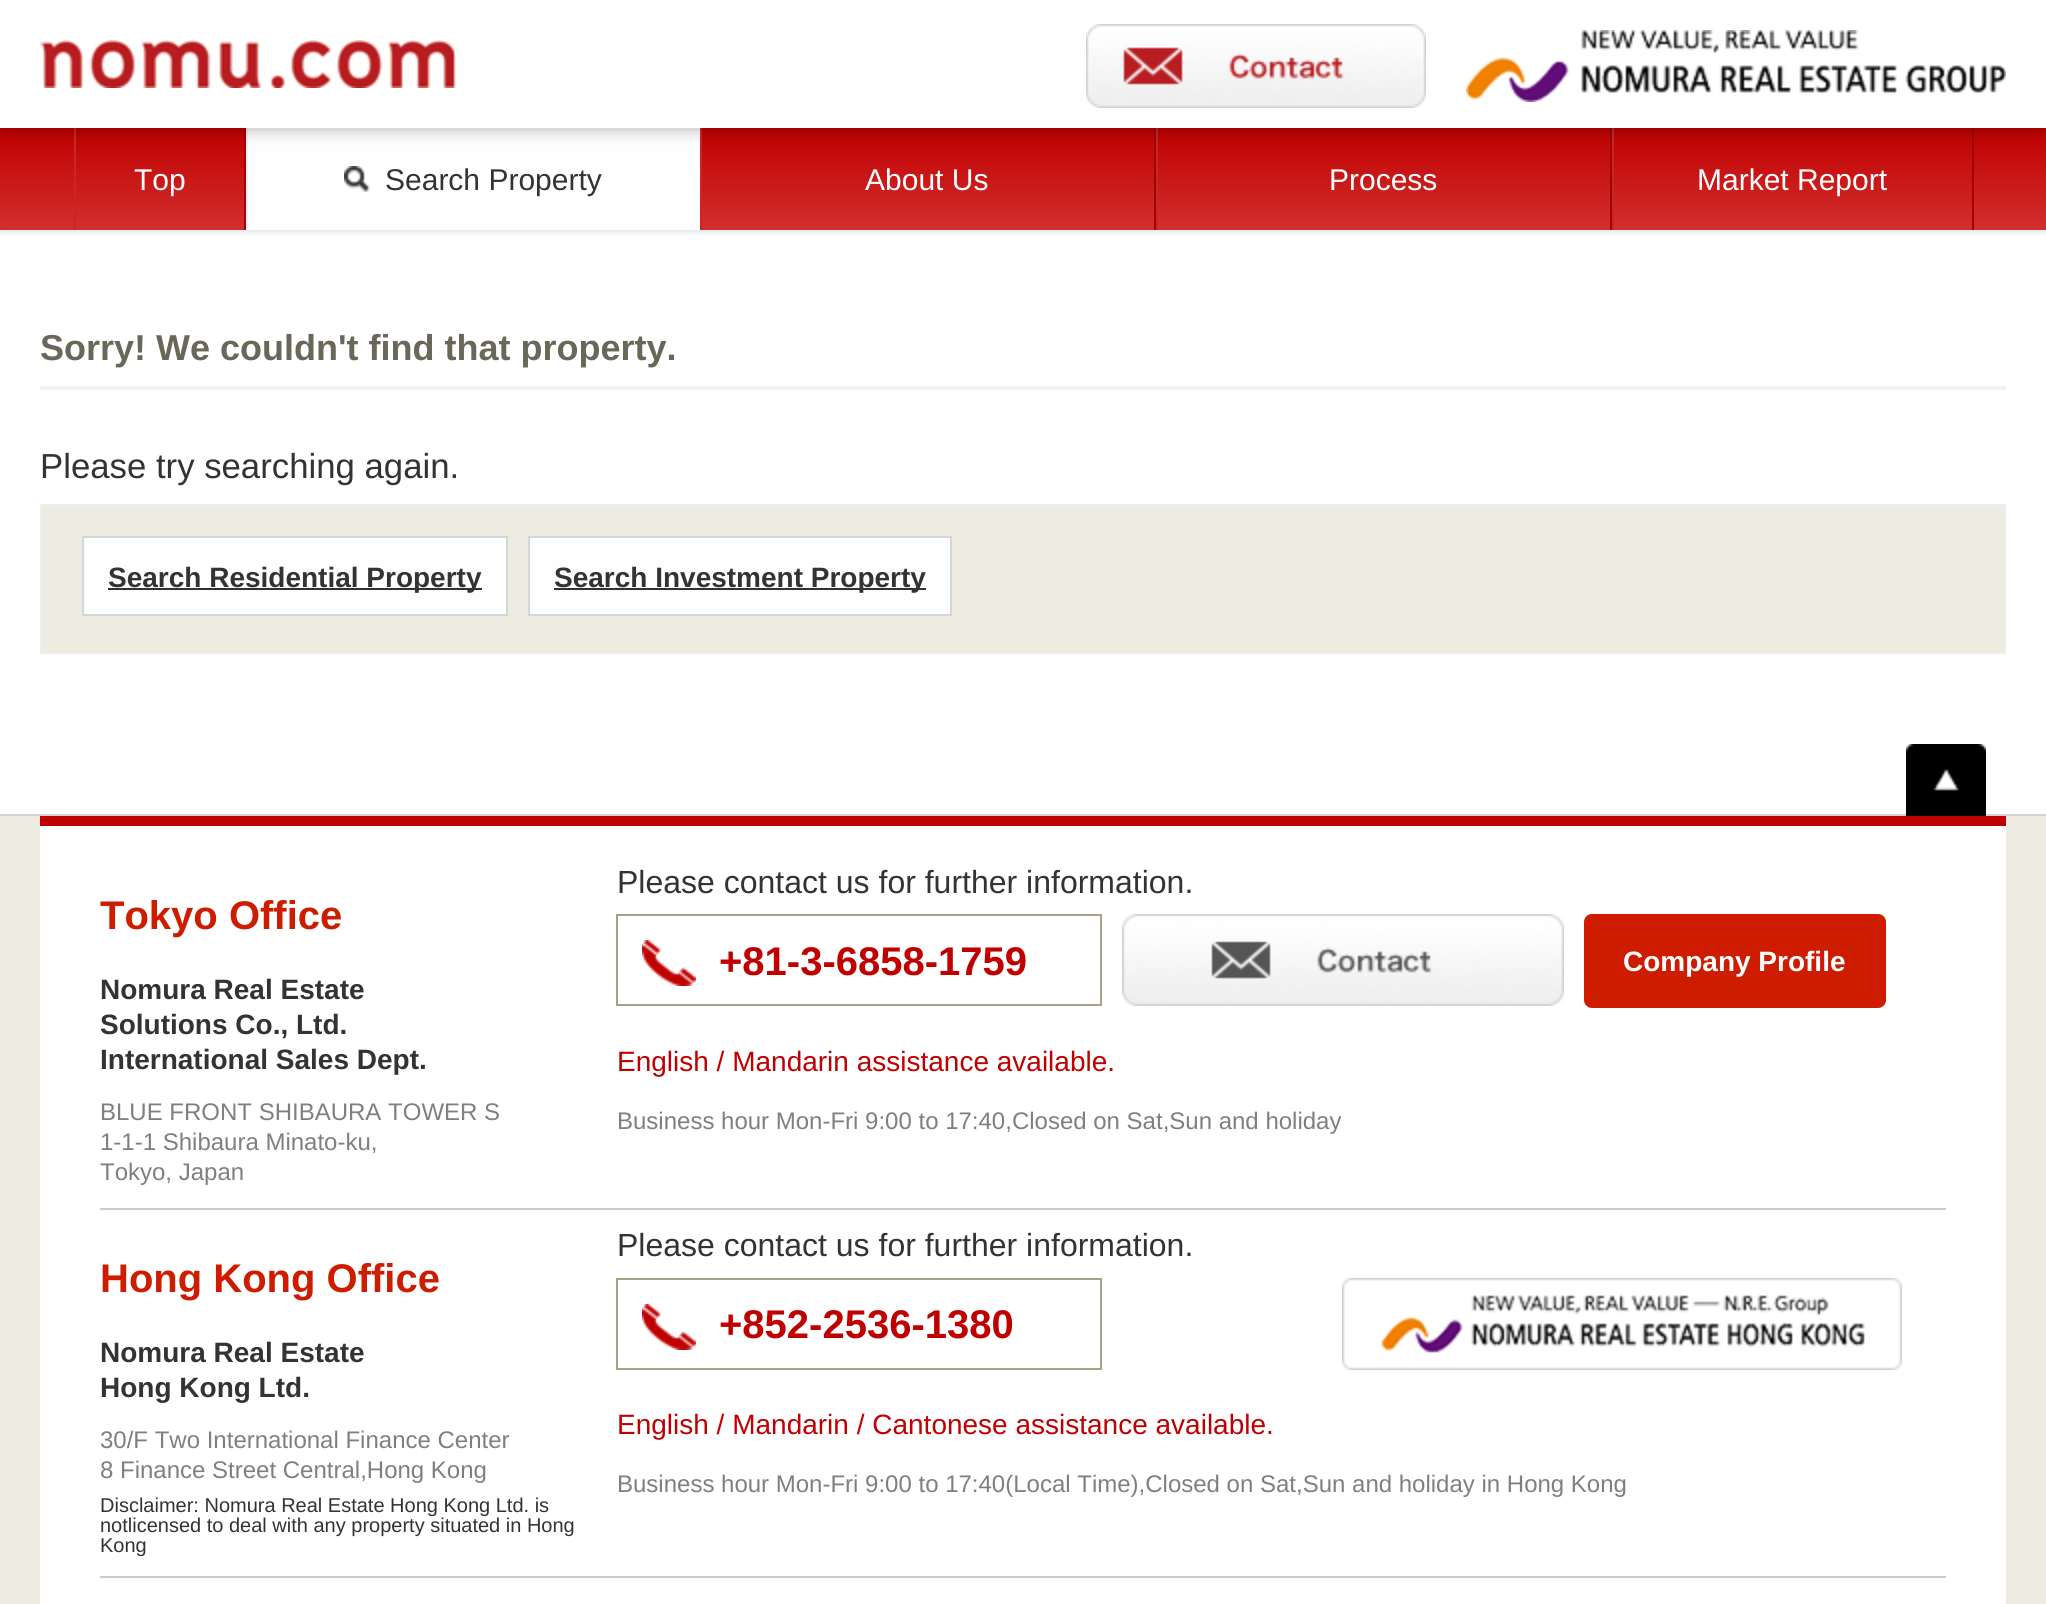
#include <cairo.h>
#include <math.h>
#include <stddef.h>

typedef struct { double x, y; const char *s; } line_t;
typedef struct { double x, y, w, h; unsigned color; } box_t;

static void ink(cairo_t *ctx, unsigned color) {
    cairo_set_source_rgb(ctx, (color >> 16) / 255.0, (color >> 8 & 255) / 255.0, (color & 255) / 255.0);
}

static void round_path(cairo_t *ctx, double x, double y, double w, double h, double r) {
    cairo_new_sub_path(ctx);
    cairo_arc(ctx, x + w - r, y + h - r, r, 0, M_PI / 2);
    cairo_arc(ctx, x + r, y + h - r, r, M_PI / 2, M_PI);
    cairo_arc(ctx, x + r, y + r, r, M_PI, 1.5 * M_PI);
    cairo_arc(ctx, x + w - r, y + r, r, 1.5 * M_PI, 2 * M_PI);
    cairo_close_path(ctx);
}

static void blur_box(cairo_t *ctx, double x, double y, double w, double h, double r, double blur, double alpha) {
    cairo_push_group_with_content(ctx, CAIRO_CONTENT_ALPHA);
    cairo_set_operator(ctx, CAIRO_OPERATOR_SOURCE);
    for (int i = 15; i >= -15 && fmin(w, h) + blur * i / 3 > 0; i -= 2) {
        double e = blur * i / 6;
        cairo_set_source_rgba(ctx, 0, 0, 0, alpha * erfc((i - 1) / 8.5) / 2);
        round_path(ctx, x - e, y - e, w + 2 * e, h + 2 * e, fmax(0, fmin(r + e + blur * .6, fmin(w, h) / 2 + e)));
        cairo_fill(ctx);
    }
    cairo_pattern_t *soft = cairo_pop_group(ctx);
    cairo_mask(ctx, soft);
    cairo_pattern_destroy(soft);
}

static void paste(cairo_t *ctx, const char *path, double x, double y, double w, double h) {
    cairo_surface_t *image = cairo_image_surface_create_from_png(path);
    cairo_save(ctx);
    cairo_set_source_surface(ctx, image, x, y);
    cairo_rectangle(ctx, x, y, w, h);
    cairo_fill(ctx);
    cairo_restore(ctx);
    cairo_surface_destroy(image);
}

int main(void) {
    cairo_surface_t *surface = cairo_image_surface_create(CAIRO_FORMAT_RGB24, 2046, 1604);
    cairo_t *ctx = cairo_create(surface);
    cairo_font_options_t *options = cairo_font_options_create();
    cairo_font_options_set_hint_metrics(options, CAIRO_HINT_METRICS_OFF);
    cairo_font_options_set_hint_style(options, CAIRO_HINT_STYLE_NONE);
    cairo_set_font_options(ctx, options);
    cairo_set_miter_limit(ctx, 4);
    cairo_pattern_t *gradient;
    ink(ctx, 0xFFFFFF);
    cairo_paint(ctx);
    ink(ctx, 0x7187A4);
    blur_box(ctx, 0, 128, 2046, 102, 0, 4, 0.4);
    gradient = cairo_pattern_create_linear(1023, 128, 1023, 230);
    cairo_pattern_add_color_stop_rgba(gradient, 0, 0.753, 0, 0, 1);
    cairo_pattern_add_color_stop_rgba(gradient, 1, 0.827, 0.184, 0.184, 1);
    cairo_set_source(ctx, gradient);
    cairo_pattern_destroy(gradient);
    cairo_rectangle(ctx, 0, 128, 2046, 102);
    cairo_fill(ctx);
    {
        static const box_t items[] = {
            {244, 128, 2, 102, 0xA30000},
            {74, 128, 2, 102, 0xC92626},
            {248, 128, 452, 102, 0xFFFFFF},
            {246, 128, 2, 102, 0xF0F0F0},
            {1154, 128, 2, 102, 0xA30000},
            {700, 128, 2, 102, 0xC92626},
            {1610, 128, 2, 102, 0xA30000},
            {1156, 128, 2, 102, 0xC92626},
            {1972, 128, 2, 102, 0xA30000},
            {1612, 128, 2, 102, 0xC92626},
        };
        for (size_t i = 0; i < sizeof items / sizeof *items; i++) {
            ink(ctx, items[i].color);
            cairo_rectangle(ctx, items[i].x, items[i].y, items[i].w, items[i].h);
            cairo_fill(ctx);
        }
    }
    ink(ctx, 0x000000);
    blur_box(ctx, 4, 6, 2038, 120, 0, 10, 0.4);
    ink(ctx, 0xFFFFFF);
    cairo_rectangle(ctx, 0, 0, 2046, 128);
    cairo_fill(ctx);
    paste(ctx, "media/1.png", 40, 40, 416, 48);
    paste(ctx, "media/2.png", 1086, 24, 340, 84);
    paste(ctx, "media/3.png", 1466, 30, 540, 72);
    cairo_select_font_face(ctx, "Liberation Sans", CAIRO_FONT_SLANT_NORMAL, CAIRO_FONT_WEIGHT_NORMAL);
    cairo_set_font_size(ctx, 30);
    cairo_move_to(ctx, 134, 190);
    cairo_show_text(ctx, "Top");
    paste(ctx, "media/4.png", 344, 166, 26, 26);
    ink(ctx, 0x333333);
    cairo_move_to(ctx, 385, 190);
    cairo_show_text(ctx, "Search Property");
    ink(ctx, 0xFFFFFF);
    {
        static const line_t items[] = {
            {865, 190, "About Us"},
            {1329, 190, "Process"},
            {1697, 190, "Market Report"},
        };
        for (size_t i = 0; i < sizeof items / sizeof *items; i++) {
            cairo_move_to(ctx, items[i].x, items[i].y);
            cairo_show_text(ctx, items[i].s);
        }
    }
    ink(ctx, 0xF2F2F2);
    cairo_rectangle(ctx, 40, 386, 1966, 4);
    cairo_fill(ctx);
    cairo_select_font_face(ctx, "Liberation Sans", CAIRO_FONT_SLANT_NORMAL, CAIRO_FONT_WEIGHT_BOLD);
    cairo_set_font_size(ctx, 36);
    ink(ctx, 0x696758);
    cairo_move_to(ctx, 40, 360);
    cairo_show_text(ctx, "Sorry! We couldn't find that property.");
    cairo_select_font_face(ctx, "Liberation Sans", CAIRO_FONT_SLANT_NORMAL, CAIRO_FONT_WEIGHT_NORMAL);
    cairo_set_font_size(ctx, 34.75);
    ink(ctx, 0x333333);
    cairo_move_to(ctx, 40, 478);
    cairo_show_text(ctx, "Please try searching again.");
    ink(ctx, 0xEEECE1);
    cairo_rectangle(ctx, 41, 505, 1964, 148);
    cairo_fill_preserve(ctx);
    ink(ctx, 0xEEEEEE);
    cairo_stroke(ctx);
    ink(ctx, 0xFEFEFE);
    cairo_rectangle(ctx, 83, 537, 424, 78);
    cairo_fill_preserve(ctx);
    ink(ctx, 0xCFD8DC);
    cairo_stroke(ctx);
    ink(ctx, 0x313131);
    cairo_rectangle(ctx, 108, 588, 374, 2);
    cairo_fill(ctx);
    cairo_select_font_face(ctx, "Liberation Sans", CAIRO_FONT_SLANT_NORMAL, CAIRO_FONT_WEIGHT_BOLD);
    cairo_set_font_size(ctx, 28);
    ink(ctx, 0x333333);
    cairo_move_to(ctx, 108, 587);
    cairo_show_text(ctx, "Search Residential Property");
    ink(ctx, 0xFEFEFE);
    cairo_rectangle(ctx, 529, 537, 422, 78);
    cairo_fill_preserve(ctx);
    ink(ctx, 0xCFD8DC);
    cairo_stroke(ctx);
    ink(ctx, 0x313131);
    cairo_rectangle(ctx, 554, 588, 372, 2);
    cairo_fill(ctx);
    ink(ctx, 0x333333);
    cairo_move_to(ctx, 554, 587);
    cairo_show_text(ctx, "Search Investment Property");
    ink(ctx, 0xEEECE1);
    cairo_rectangle(ctx, 0, 816, 2046, 788);
    cairo_fill(ctx);
    ink(ctx, 0xD6D4CA);
    cairo_rectangle(ctx, 0, 814, 2046, 2);
    cairo_fill(ctx);
    paste(ctx, "media/5.png", 1906, 744, 80, 72);
    ink(ctx, 0xFFFFFF);
    cairo_rectangle(ctx, 40, 826, 1966, 778);
    cairo_fill(ctx);
    ink(ctx, 0xC00000);
    cairo_rectangle(ctx, 40, 816, 1966, 10);
    cairo_fill(ctx);
    cairo_set_font_size(ctx, 40);
    ink(ctx, 0xCD1C00);
    cairo_move_to(ctx, 100, 929);
    cairo_show_text(ctx, "Tokyo Office");
    cairo_set_font_size(ctx, 28);
    ink(ctx, 0x333333);
    {
        static const line_t items[] = {
            {100, 999, "Nomura Real Estate"},
            {100, 1034, "Solutions Co., Ltd."},
            {100, 1069, "International Sales Dept."},
        };
        for (size_t i = 0; i < sizeof items / sizeof *items; i++) {
            cairo_move_to(ctx, items[i].x, items[i].y);
            cairo_show_text(ctx, items[i].s);
        }
    }
    cairo_select_font_face(ctx, "Liberation Sans", CAIRO_FONT_SLANT_NORMAL, CAIRO_FONT_WEIGHT_NORMAL);
    cairo_set_font_size(ctx, 24);
    ink(ctx, 0x7F7F7F);
    {
        static const line_t items[] = {
            {100, 1120, "BLUE FRONT SHIBAURA TOWER S"},
            {100, 1150, "1-1-1 Shibaura Minato-ku,"},
            {100, 1180, "Tokyo, Japan"},
        };
        for (size_t i = 0; i < sizeof items / sizeof *items; i++) {
            cairo_move_to(ctx, items[i].x, items[i].y);
            cairo_show_text(ctx, items[i].s);
        }
    }
    cairo_set_font_size(ctx, 32);
    ink(ctx, 0x333333);
    cairo_move_to(ctx, 617, 893);
    cairo_show_text(ctx, "Please contact us for further information.");
    paste(ctx, "media/6.png", 642, 940, 54, 46);
    cairo_rectangle(ctx, 617, 915, 484, 90);
    ink(ctx, 0xA7A283);
    cairo_stroke(ctx);
    cairo_select_font_face(ctx, "Liberation Sans", CAIRO_FONT_SLANT_NORMAL, CAIRO_FONT_WEIGHT_BOLD);
    cairo_set_font_size(ctx, 40);
    ink(ctx, 0xC00000);
    cairo_move_to(ctx, 719, 975);
    cairo_show_text(ctx, "+81-3-6858-1759");
    paste(ctx, "media/7.png", 1122, 914, 442, 92);
    ink(ctx, 0xCD1C00);
    round_path(ctx, 1584, 914, 302, 94, 8);
    cairo_fill(ctx);
    cairo_set_font_size(ctx, 28);
    ink(ctx, 0xFFFFFF);
    cairo_move_to(ctx, 1623, 971);
    cairo_show_text(ctx, "Company Profile");
    cairo_select_font_face(ctx, "Liberation Sans", CAIRO_FONT_SLANT_NORMAL, CAIRO_FONT_WEIGHT_NORMAL);
    ink(ctx, 0xC00000);
    cairo_move_to(ctx, 617, 1071);
    cairo_show_text(ctx, "English / Mandarin assistance available.");
    cairo_set_font_size(ctx, 24);
    ink(ctx, 0x7F7F7F);
    cairo_move_to(ctx, 617, 1129);
    cairo_show_text(ctx, "Business hour Mon-Fri 9:00 to 17:40,Closed on Sat,Sun and holiday");
    ink(ctx, 0xCCCCCC);
    cairo_rectangle(ctx, 100, 1208, 1846, 2);
    cairo_fill(ctx);
    cairo_select_font_face(ctx, "Liberation Sans", CAIRO_FONT_SLANT_NORMAL, CAIRO_FONT_WEIGHT_BOLD);
    cairo_set_font_size(ctx, 40);
    ink(ctx, 0xCD1C00);
    cairo_move_to(ctx, 100, 1292);
    cairo_show_text(ctx, "Hong Kong Office");
    cairo_set_font_size(ctx, 28);
    ink(ctx, 0x333333);
    cairo_move_to(ctx, 100, 1362);
    cairo_show_text(ctx, "Nomura Real Estate");
    cairo_move_to(ctx, 100, 1397);
    cairo_show_text(ctx, "Hong Kong Ltd.");
    cairo_select_font_face(ctx, "Liberation Sans", CAIRO_FONT_SLANT_NORMAL, CAIRO_FONT_WEIGHT_NORMAL);
    cairo_set_font_size(ctx, 24);
    ink(ctx, 0x7F7F7F);
    cairo_move_to(ctx, 100, 1448);
    cairo_show_text(ctx, "30/F Two International Finance Center");
    cairo_move_to(ctx, 100, 1478);
    cairo_show_text(ctx, "8 Finance Street Central,Hong Kong");
    cairo_set_font_size(ctx, 20);
    ink(ctx, 0x333333);
    {
        static const line_t items[] = {
            {100, 1512, "Disclaimer: Nomura Real Estate Hong Kong Ltd. is"},
            {100, 1532, "notlicensed to deal with any property situated in Hong"},
            {100, 1552, "Kong"},
        };
        for (size_t i = 0; i < sizeof items / sizeof *items; i++) {
            cairo_move_to(ctx, items[i].x, items[i].y);
            cairo_show_text(ctx, items[i].s);
        }
    }
    cairo_set_font_size(ctx, 32);
    cairo_move_to(ctx, 617, 1256);
    cairo_show_text(ctx, "Please contact us for further information.");
    paste(ctx, "media/6.png", 642, 1304, 54, 46);
    cairo_rectangle(ctx, 617, 1279, 484, 90);
    ink(ctx, 0xA7A283);
    cairo_stroke(ctx);
    cairo_select_font_face(ctx, "Liberation Sans", CAIRO_FONT_SLANT_NORMAL, CAIRO_FONT_WEIGHT_BOLD);
    cairo_set_font_size(ctx, 40);
    ink(ctx, 0xC00000);
    cairo_move_to(ctx, 719, 1338);
    cairo_show_text(ctx, "+852-2536-1380");
    paste(ctx, "media/8.png", 1342, 1278, 560, 92);
    cairo_select_font_face(ctx, "Liberation Sans", CAIRO_FONT_SLANT_NORMAL, CAIRO_FONT_WEIGHT_NORMAL);
    cairo_set_font_size(ctx, 28);
    cairo_move_to(ctx, 617, 1434);
    cairo_show_text(ctx, "English / Mandarin / Cantonese assistance available.");
    cairo_set_font_size(ctx, 24);
    ink(ctx, 0x7F7F7F);
    cairo_move_to(ctx, 617, 1492);
    cairo_show_text(ctx, "Business hour Mon-Fri 9:00 to 17:40(Local Time),Closed on Sat,Sun and holiday in Hong Kong");
    ink(ctx, 0xCCCCCC);
    cairo_rectangle(ctx, 100, 1576, 1846, 2);
    cairo_fill(ctx);
    cairo_surface_write_to_png(surface, "image.png");
    cairo_font_options_destroy(options);
    cairo_destroy(ctx);
    cairo_surface_destroy(surface);
    return 0;
}
